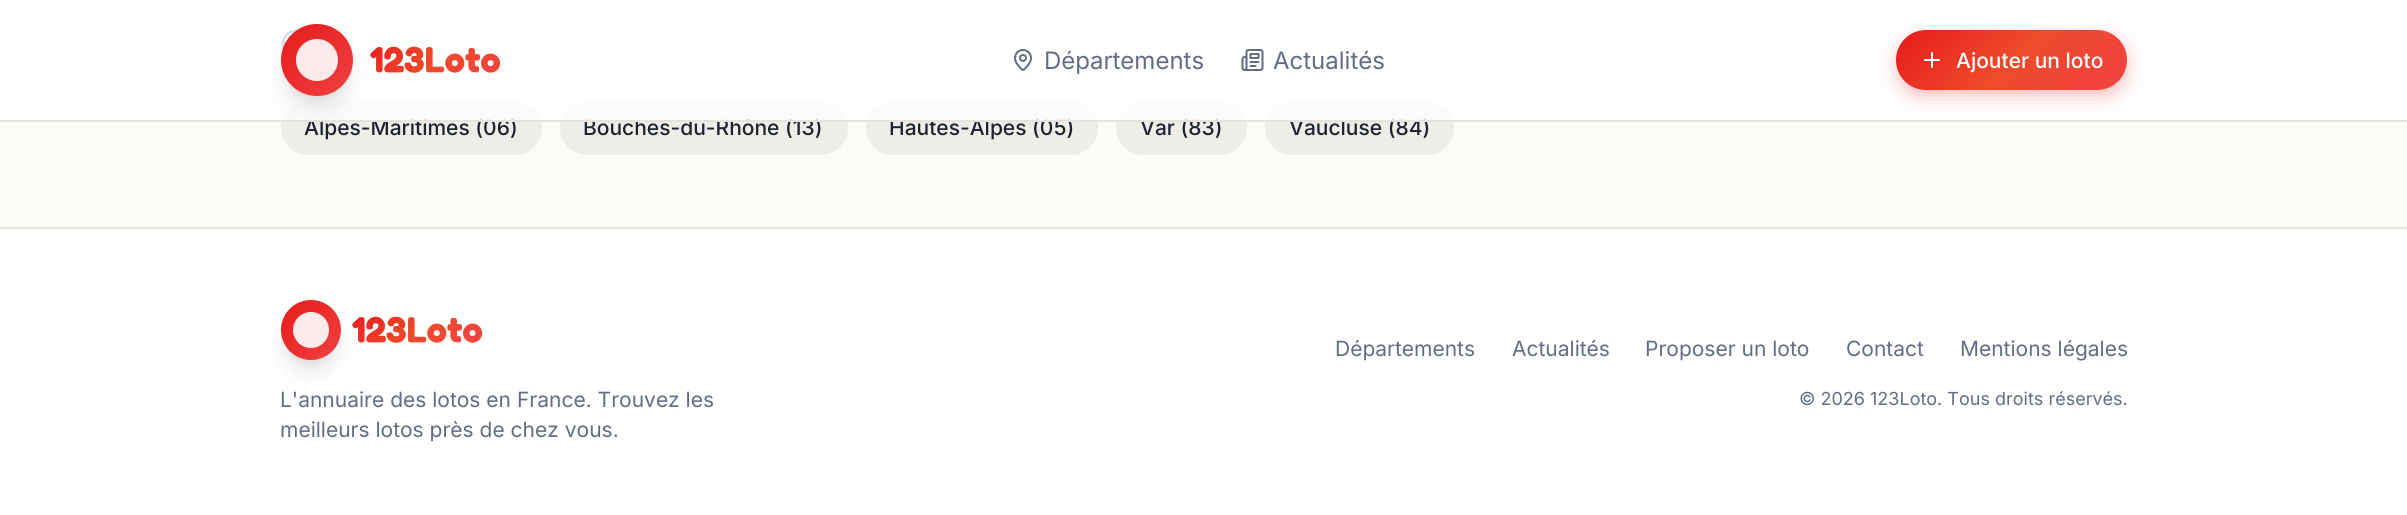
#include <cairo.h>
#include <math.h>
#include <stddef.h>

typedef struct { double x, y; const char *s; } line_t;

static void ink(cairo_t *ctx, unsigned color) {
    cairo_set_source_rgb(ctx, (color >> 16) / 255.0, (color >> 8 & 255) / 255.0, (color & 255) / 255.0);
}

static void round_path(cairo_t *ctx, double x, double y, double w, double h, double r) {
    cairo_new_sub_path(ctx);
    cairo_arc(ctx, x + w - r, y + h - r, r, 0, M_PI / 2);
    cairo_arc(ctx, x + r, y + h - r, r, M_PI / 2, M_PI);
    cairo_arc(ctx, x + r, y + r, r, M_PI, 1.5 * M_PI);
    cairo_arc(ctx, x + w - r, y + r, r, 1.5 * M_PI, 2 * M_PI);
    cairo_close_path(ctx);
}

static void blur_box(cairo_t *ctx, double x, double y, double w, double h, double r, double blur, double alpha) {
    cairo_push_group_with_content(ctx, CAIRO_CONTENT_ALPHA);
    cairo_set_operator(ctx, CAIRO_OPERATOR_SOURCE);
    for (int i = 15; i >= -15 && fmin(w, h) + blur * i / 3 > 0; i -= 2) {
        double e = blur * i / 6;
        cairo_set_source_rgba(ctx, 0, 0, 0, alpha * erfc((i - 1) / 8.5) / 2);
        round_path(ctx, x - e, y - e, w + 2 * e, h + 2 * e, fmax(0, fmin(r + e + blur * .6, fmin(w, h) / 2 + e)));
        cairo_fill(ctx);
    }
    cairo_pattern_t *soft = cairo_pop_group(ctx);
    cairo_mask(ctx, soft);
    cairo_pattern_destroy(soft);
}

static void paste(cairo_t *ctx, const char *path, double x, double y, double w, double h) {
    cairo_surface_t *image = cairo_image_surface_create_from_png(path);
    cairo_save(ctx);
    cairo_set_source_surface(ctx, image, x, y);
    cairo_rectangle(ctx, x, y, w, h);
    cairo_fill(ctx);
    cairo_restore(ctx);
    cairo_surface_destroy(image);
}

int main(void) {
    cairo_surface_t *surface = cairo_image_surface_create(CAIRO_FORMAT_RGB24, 2407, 515);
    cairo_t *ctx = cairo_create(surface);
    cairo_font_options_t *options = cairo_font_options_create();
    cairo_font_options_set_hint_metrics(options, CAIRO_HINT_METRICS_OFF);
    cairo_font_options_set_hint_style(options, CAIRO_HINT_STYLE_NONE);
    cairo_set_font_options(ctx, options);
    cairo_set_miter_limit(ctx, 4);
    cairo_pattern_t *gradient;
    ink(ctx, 0xFBFBF8);
    cairo_paint(ctx);
    cairo_arc(ctx, 295.5, 43.5, 12.5, 0, 2 * M_PI);
    ink(ctx, 0x2258C3);
    cairo_set_line_width(ctx, 2.5);
    cairo_stroke(ctx);
    cairo_new_path(ctx);
    cairo_move_to(ctx, 295.5, 31);
    cairo_curve_to(ctx, 289, 38, 289, 49, 295.5, 56);
    cairo_curve_to(ctx, 302, 49, 302, 38, 295.5, 31);
    cairo_move_to(ctx, 283, 43.5);
    cairo_line_to(ctx, 308, 43.5);
    cairo_set_line_cap(ctx, CAIRO_LINE_CAP_ROUND);
    cairo_set_line_join(ctx, CAIRO_LINE_JOIN_ROUND);
    cairo_stroke(ctx);
    ink(ctx, 0xEFEDE7);
    round_path(ctx, 281, 101, 261, 54, 27);
    cairo_fill(ctx);
    cairo_select_font_face(ctx, "Inter Medium", CAIRO_FONT_SLANT_NORMAL, CAIRO_FONT_WEIGHT_NORMAL);
    cairo_set_font_size(ctx, 21);
    ink(ctx, 0x1D2330);
    cairo_move_to(ctx, 304, 135);
    cairo_show_text(ctx, "Alpes-Maritimes (06)");
    ink(ctx, 0xEFEDE7);
    round_path(ctx, 560, 101, 288, 54, 27);
    cairo_fill(ctx);
    ink(ctx, 0x1D2330);
    cairo_move_to(ctx, 583, 135);
    cairo_show_text(ctx, "Bouches-du-Rhône (13)");
    ink(ctx, 0xEFEDE7);
    round_path(ctx, 866, 101, 232, 54, 27);
    cairo_fill(ctx);
    ink(ctx, 0x1D2330);
    cairo_move_to(ctx, 889, 135);
    cairo_show_text(ctx, "Hautes-Alpes (05)");
    ink(ctx, 0xEFEDE7);
    round_path(ctx, 1116, 101, 131, 54, 27);
    cairo_fill(ctx);
    ink(ctx, 0x1D2330);
    cairo_move_to(ctx, 1140, 135);
    cairo_show_text(ctx, "Var (83)");
    ink(ctx, 0xEFEDE7);
    round_path(ctx, 1265, 101, 189, 54, 27);
    cairo_fill(ctx);
    ink(ctx, 0x1D2330);
    cairo_move_to(ctx, 1289, 135);
    cairo_show_text(ctx, "Vaucluse (84)");
    cairo_set_source_rgba(ctx, 1, 1, 1, 0.8);
    cairo_rectangle(ctx, 0, 0, 2407, 120);
    cairo_fill(ctx);
    ink(ctx, 0xE5E3DC);
    cairo_rectangle(ctx, 0, 120, 2407, 2);
    cairo_fill(ctx);
    ink(ctx, 0x000000);
    blur_box(ctx, 287, 36, 60, 60, 30, 4.5, 0.1);
    blur_box(ctx, 285, 44, 63, 63, 31.5, 11, 0.1);
    gradient = cairo_pattern_create_linear(281, 24, 353, 96);
    cairo_pattern_add_color_stop_rgba(gradient, 0, 0.902, 0.102, 0.102, 1);
    cairo_pattern_add_color_stop_rgba(gradient, 1, 0.941, 0.259, 0.259, 1);
    cairo_set_source(ctx, gradient);
    cairo_pattern_destroy(gradient);
    cairo_arc(ctx, 317, 60, 36, 0, 2 * M_PI);
    cairo_fill(ctx);
    cairo_set_source_rgba(ctx, 1, 1, 1, 0.9);
    cairo_arc(ctx, 317, 60, 21, 0, 2 * M_PI);
    cairo_fill(ctx);
    cairo_select_font_face(ctx, "Fredoka", CAIRO_FONT_SLANT_NORMAL, CAIRO_FONT_WEIGHT_BOLD);
    cairo_set_font_size(ctx, 36);
    gradient = cairo_pattern_create_linear(390, 15, 480, 105);
    cairo_pattern_add_color_stop_rgba(gradient, 0, 0.902, 0.102, 0.102, 1);
    cairo_pattern_add_color_stop_rgba(gradient, 0.5, 0.933, 0.294, 0.169, 1);
    cairo_pattern_add_color_stop_rgba(gradient, 1, 0.941, 0.259, 0.259, 1);
    cairo_set_source(ctx, gradient);
    cairo_pattern_destroy(gradient);
    cairo_move_to(ctx, 370, 72);
    cairo_show_text(ctx, "123Loto");
    paste(ctx, "media/1.png", 1014, 49, 18, 22);
    cairo_select_font_face(ctx, "Inter", CAIRO_FONT_SLANT_NORMAL, CAIRO_FONT_WEIGHT_NORMAL);
    cairo_set_font_size(ctx, 24);
    ink(ctx, 0x626D84);
    cairo_move_to(ctx, 1044, 69);
    cairo_show_text(ctx, "Départements");
    paste(ctx, "media/2.png", 1241, 49, 23, 22);
    cairo_move_to(ctx, 1273, 69);
    cairo_show_text(ctx, "Actualités");
    ink(ctx, 0xE61A1A);
    blur_box(ctx, 1901, 41, 222, 51, 25.5, 10.5, 0.4);
    gradient = cairo_pattern_create_linear(1939, -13, 2084, 133);
    cairo_pattern_add_color_stop_rgba(gradient, 0, 0.902, 0.102, 0.102, 1);
    cairo_pattern_add_color_stop_rgba(gradient, 0.5, 0.933, 0.294, 0.169, 1);
    cairo_pattern_add_color_stop_rgba(gradient, 1, 0.941, 0.259, 0.259, 1);
    cairo_set_source(ctx, gradient);
    cairo_pattern_destroy(gradient);
    round_path(ctx, 1896, 30, 231, 60, 30);
    cairo_fill(ctx);
    cairo_new_path(ctx);
    cairo_move_to(ctx, 1925, 60);
    cairo_line_to(ctx, 1939, 60);
    cairo_move_to(ctx, 1932, 53);
    cairo_line_to(ctx, 1932, 67);
    ink(ctx, 0xFFFFFF);
    cairo_set_line_width(ctx, 2);
    cairo_stroke(ctx);
    cairo_select_font_face(ctx, "Inter Medium", CAIRO_FONT_SLANT_NORMAL, CAIRO_FONT_WEIGHT_NORMAL);
    cairo_set_font_size(ctx, 21);
    cairo_move_to(ctx, 1956, 68);
    cairo_show_text(ctx, "Ajouter un loto");
    cairo_rectangle(ctx, 0, 229, 2407, 286);
    cairo_fill(ctx);
    ink(ctx, 0xE5E3DC);
    cairo_rectangle(ctx, 0, 227, 2407, 2);
    cairo_fill(ctx);
    ink(ctx, 0x000000);
    blur_box(ctx, 287, 312, 48, 48, 24, 4.5, 0.1);
    blur_box(ctx, 285, 320, 51, 51, 25.5, 11, 0.1);
    gradient = cairo_pattern_create_linear(281, 300, 341, 360);
    cairo_pattern_add_color_stop_rgba(gradient, 0, 0.902, 0.102, 0.102, 1);
    cairo_pattern_add_color_stop_rgba(gradient, 1, 0.941, 0.259, 0.259, 1);
    cairo_set_source(ctx, gradient);
    cairo_pattern_destroy(gradient);
    cairo_arc(ctx, 311, 330, 30, 0, 2 * M_PI);
    cairo_fill(ctx);
    cairo_set_source_rgba(ctx, 1, 1, 1, 0.9);
    cairo_arc(ctx, 311, 330, 18, 0, 2 * M_PI);
    cairo_fill(ctx);
    cairo_select_font_face(ctx, "Fredoka", CAIRO_FONT_SLANT_NORMAL, CAIRO_FONT_WEIGHT_BOLD);
    cairo_set_font_size(ctx, 36);
    gradient = cairo_pattern_create_linear(372, 285, 462, 375);
    cairo_pattern_add_color_stop_rgba(gradient, 0, 0.902, 0.102, 0.102, 1);
    cairo_pattern_add_color_stop_rgba(gradient, 0.5, 0.933, 0.294, 0.169, 1);
    cairo_pattern_add_color_stop_rgba(gradient, 1, 0.941, 0.259, 0.259, 1);
    cairo_set_source(ctx, gradient);
    cairo_pattern_destroy(gradient);
    cairo_move_to(ctx, 352, 342);
    cairo_show_text(ctx, "123Loto");
    cairo_select_font_face(ctx, "Inter", CAIRO_FONT_SLANT_NORMAL, CAIRO_FONT_WEIGHT_NORMAL);
    cairo_set_font_size(ctx, 21);
    ink(ctx, 0x626D84);
    {
        static const line_t items[] = {
            {280, 407, "L'annuaire des lotos en France. Trouvez les"},
            {280, 437, "meilleurs lotos près de chez vous."},
            {1335, 356, "Départements"},
            {1512, 356, "Actualités"},
            {1645, 356, "Proposer un loto"},
            {1846, 356, "Contact"},
            {1960, 356, "Mentions légales"},
        };
        for (size_t i = 0; i < sizeof items / sizeof *items; i++) {
            cairo_move_to(ctx, items[i].x, items[i].y);
            cairo_show_text(ctx, items[i].s);
        }
    }
    cairo_set_font_size(ctx, 18);
    cairo_move_to(ctx, 1799, 405);
    cairo_show_text(ctx, "© 2026 123Loto. Tous droits réservés.");
    cairo_surface_write_to_png(surface, "image.png");
    cairo_font_options_destroy(options);
    cairo_destroy(ctx);
    cairo_surface_destroy(surface);
    return 0;
}
